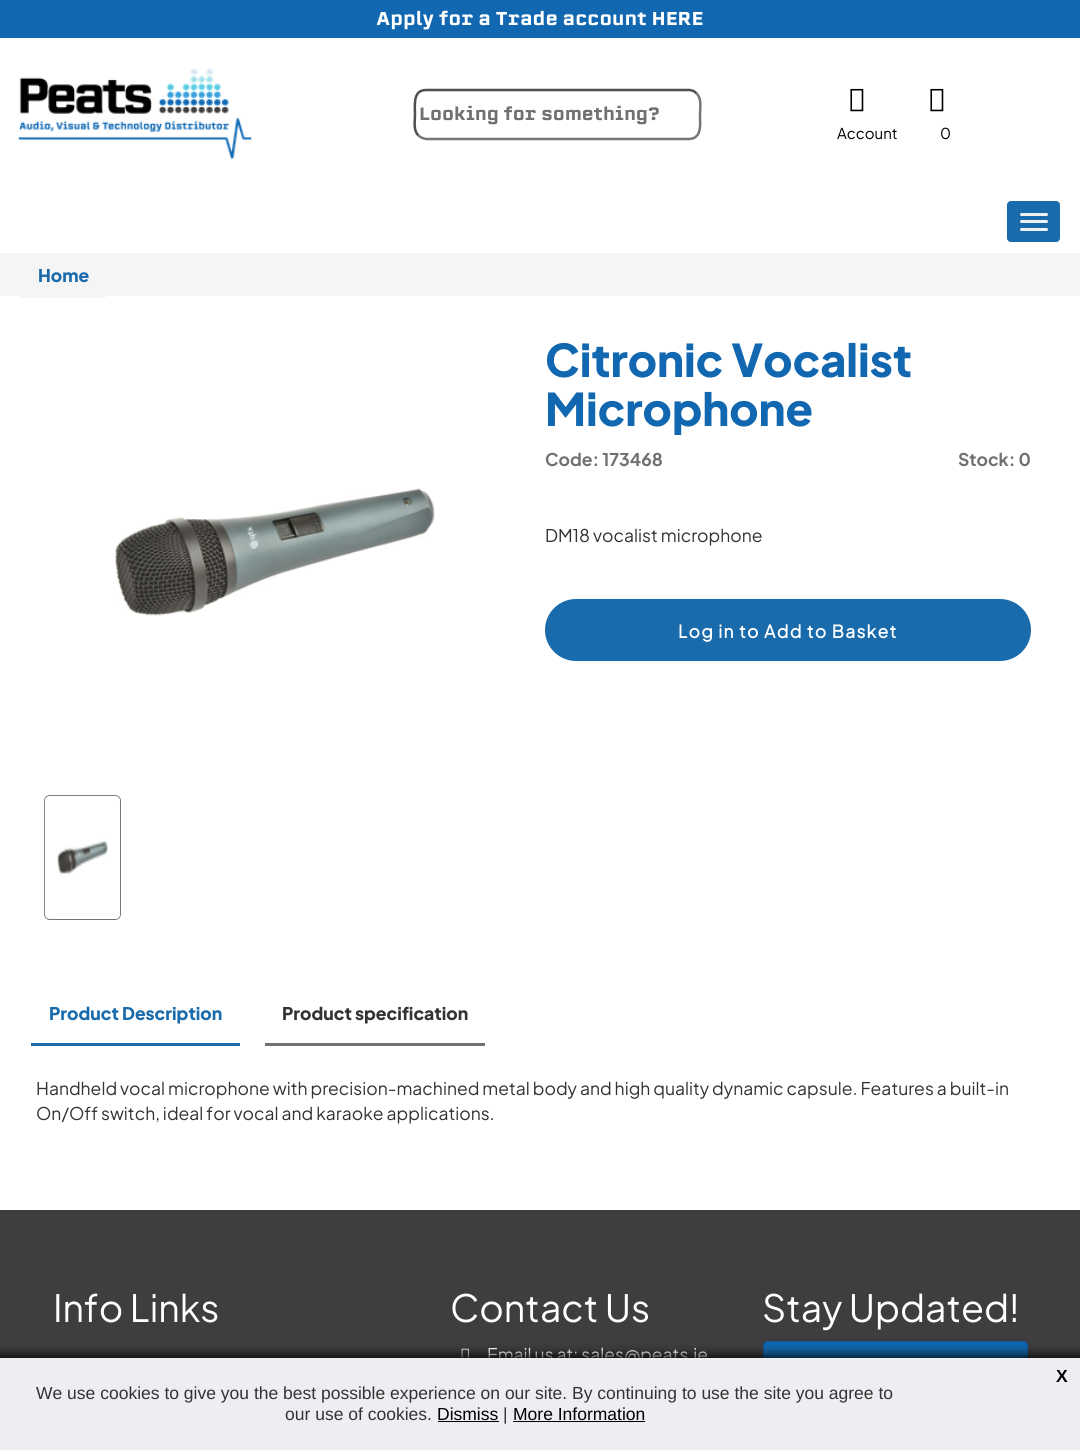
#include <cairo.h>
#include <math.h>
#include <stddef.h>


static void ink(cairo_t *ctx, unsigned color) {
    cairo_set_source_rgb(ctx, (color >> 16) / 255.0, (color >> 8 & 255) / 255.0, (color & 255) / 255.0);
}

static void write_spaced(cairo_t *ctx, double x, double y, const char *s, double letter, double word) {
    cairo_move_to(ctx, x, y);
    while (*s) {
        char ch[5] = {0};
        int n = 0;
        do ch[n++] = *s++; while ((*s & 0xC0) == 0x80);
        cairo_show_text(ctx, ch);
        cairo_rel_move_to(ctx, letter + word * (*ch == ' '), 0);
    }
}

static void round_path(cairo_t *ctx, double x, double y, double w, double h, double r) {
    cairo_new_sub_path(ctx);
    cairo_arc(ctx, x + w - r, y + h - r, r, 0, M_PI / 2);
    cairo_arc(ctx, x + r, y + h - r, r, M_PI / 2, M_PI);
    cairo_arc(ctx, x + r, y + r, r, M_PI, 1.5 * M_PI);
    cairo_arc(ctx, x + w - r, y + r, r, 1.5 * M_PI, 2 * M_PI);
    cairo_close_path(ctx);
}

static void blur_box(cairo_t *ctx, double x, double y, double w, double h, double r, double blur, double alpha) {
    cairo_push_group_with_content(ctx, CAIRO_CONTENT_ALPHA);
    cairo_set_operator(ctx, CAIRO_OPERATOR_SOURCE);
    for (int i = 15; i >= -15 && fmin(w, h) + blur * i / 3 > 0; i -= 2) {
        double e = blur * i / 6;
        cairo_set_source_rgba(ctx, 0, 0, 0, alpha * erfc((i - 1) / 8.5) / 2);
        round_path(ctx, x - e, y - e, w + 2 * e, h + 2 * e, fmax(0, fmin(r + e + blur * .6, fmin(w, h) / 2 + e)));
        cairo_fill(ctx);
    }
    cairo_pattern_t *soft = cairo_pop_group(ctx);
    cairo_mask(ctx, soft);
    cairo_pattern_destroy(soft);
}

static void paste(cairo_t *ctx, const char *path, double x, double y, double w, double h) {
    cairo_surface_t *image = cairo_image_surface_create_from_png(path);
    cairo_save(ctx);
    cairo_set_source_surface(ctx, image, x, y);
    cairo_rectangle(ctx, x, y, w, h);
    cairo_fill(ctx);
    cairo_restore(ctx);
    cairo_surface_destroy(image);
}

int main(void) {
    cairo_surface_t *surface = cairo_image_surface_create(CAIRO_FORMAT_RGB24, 1080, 1450);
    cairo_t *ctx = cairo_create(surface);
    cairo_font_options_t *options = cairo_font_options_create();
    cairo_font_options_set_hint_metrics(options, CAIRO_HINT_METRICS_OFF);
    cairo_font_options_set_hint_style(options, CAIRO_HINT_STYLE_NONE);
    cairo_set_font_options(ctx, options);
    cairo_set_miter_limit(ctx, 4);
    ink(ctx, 0xFFFFFF);
    cairo_paint(ctx);
    ink(ctx, 0x1167B0);
    cairo_rectangle(ctx, 0, 0, 1080, 38);
    cairo_fill(ctx);
    cairo_select_font_face(ctx, "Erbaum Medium", CAIRO_FONT_SLANT_NORMAL, CAIRO_FONT_WEIGHT_NORMAL);
    cairo_set_font_size(ctx, 18.3);
    ink(ctx, 0xFFFFFF);
    cairo_move_to(ctx, 376, 25);
    cairo_show_text(ctx, "Apply for a Trade account HERE");
    paste(ctx, "media/1.png", 18, 68, 234, 91);
    cairo_new_path(ctx);
    cairo_move_to(ctx, 696.5, 93.5);
    cairo_curve_to(ctx, 702, 98.5, 700, 108, 700, 114.5);
    cairo_curve_to(ctx, 700, 123.5, 702.5, 138.5, 689, 139);
    cairo_line_to(ctx, 426, 139);
    cairo_curve_to(ctx, 423.5, 138.5, 420.5, 137.5, 418.5, 135.5);
    ink(ctx, 0x767676);
    cairo_set_line_width(ctx, 2.5);
    cairo_stroke(ctx);
    cairo_new_path(ctx);
    cairo_move_to(ctx, 418.5, 135.5);
    cairo_curve_to(ctx, 413, 130.5, 415, 121, 415, 114.5);
    cairo_curve_to(ctx, 415, 105.5, 412.5, 90, 426, 90);
    cairo_line_to(ctx, 689, 90);
    cairo_curve_to(ctx, 691.5, 90, 694.5, 91, 696.5, 93.5);
    ink(ctx, 0x4F4F4F);
    cairo_stroke(ctx);
    cairo_set_font_size(ctx, 17.5);
    ink(ctx, 0x707070);
    cairo_move_to(ctx, 419, 120);
    cairo_show_text(ctx, "Looking for something?");
    paste(ctx, "media/2.png", 850, 88, 14, 24);
    cairo_select_font_face(ctx, "Plus Jakarta Sans", CAIRO_FONT_SLANT_NORMAL, CAIRO_FONT_WEIGHT_NORMAL);
    cairo_set_font_size(ctx, 15);
    ink(ctx, 0x000000);
    cairo_move_to(ctx, 837, 139);
    cairo_show_text(ctx, "Account");
    paste(ctx, "media/2.png", 930, 88, 14, 24);
    cairo_move_to(ctx, 940, 139);
    cairo_show_text(ctx, "0");
    ink(ctx, 0x196BAC);
    round_path(ctx, 1006.5, 200.5, 54, 42, 4.5);
    cairo_fill_preserve(ctx);
    ink(ctx, 0xFFFFFF);
    cairo_set_line_width(ctx, 1);
    cairo_stroke(ctx);
    ink(ctx, 0xF1F1F1);
    round_path(ctx, 1020, 213, 28, 3, 1.5);
    cairo_fill(ctx);
    round_path(ctx, 1020, 220, 28, 3, 1.5);
    cairo_fill(ctx);
    round_path(ctx, 1020, 228, 28, 3, 1.5);
    cairo_fill(ctx);
    ink(ctx, 0xF5F5F5);
    cairo_rectangle(ctx, 0, 253, 1080, 43);
    cairo_fill(ctx);
    round_path(ctx, 19, 253, 89, 45, 5);
    cairo_fill(ctx);
    cairo_select_font_face(ctx, "Plus Jakarta Sans ExtraBold", CAIRO_FONT_SLANT_NORMAL, CAIRO_FONT_WEIGHT_NORMAL);
    cairo_set_font_size(ctx, 17.5);
    ink(ctx, 0x196BAC);
    cairo_move_to(ctx, 38, 282);
    cairo_show_text(ctx, "Home");
    paste(ctx, "media/3.png", 115, 488, 320, 128);
    round_path(ctx, 44.5, 795.5, 76, 124, 5.5);
    ink(ctx, 0x757575);
    cairo_stroke(ctx);
    paste(ctx, "media/4.png", 44, 795, 77, 124);
    cairo_set_font_size(ctx, 45);
    ink(ctx, 0x1167B0);
    cairo_move_to(ctx, 545, 377);
    cairo_show_text(ctx, "Citronic Vocalist");
    cairo_move_to(ctx, 545, 426);
    cairo_show_text(ctx, "Microphone");
    cairo_select_font_face(ctx, "Plus Jakarta Sans", CAIRO_FONT_SLANT_NORMAL, CAIRO_FONT_WEIGHT_BOLD);
    cairo_set_font_size(ctx, 17.5);
    ink(ctx, 0x707070);
    cairo_move_to(ctx, 545, 466);
    cairo_show_text(ctx, "Code: 173468");
    cairo_move_to(ctx, 958, 466);
    cairo_show_text(ctx, "Stock: 0");
    cairo_select_font_face(ctx, "Plus Jakarta Sans", CAIRO_FONT_SLANT_NORMAL, CAIRO_FONT_WEIGHT_NORMAL);
    ink(ctx, 0x333333);
    cairo_move_to(ctx, 545, 542);
    cairo_show_text(ctx, "DM18 vocalist microphone");
    ink(ctx, 0x196BAC);
    round_path(ctx, 545, 599, 486, 62, 31);
    cairo_fill(ctx);
    cairo_select_font_face(ctx, "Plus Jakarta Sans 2", CAIRO_FONT_SLANT_NORMAL, CAIRO_FONT_WEIGHT_BOLD);
    ink(ctx, 0xFFFFFF);
    write_spaced(ctx, 678, 638, "Log in to Add to Basket", 1.25, 0);
    ink(ctx, 0x196BAC);
    cairo_rectangle(ctx, 31, 1043, 209, 3);
    cairo_fill(ctx);
    cairo_select_font_face(ctx, "Plus Jakarta Sans ExtraBold", CAIRO_FONT_SLANT_NORMAL, CAIRO_FONT_WEIGHT_NORMAL);
    cairo_move_to(ctx, 49, 1020);
    cairo_show_text(ctx, "Product Description");
    ink(ctx, 0x707070);
    cairo_rectangle(ctx, 265, 1043, 220, 3);
    cairo_fill(ctx);
    ink(ctx, 0x333333);
    cairo_move_to(ctx, 282, 1020);
    cairo_show_text(ctx, "Product specification");
    cairo_select_font_face(ctx, "Plus Jakarta Sans", CAIRO_FONT_SLANT_NORMAL, CAIRO_FONT_WEIGHT_NORMAL);
    cairo_move_to(ctx, 36, 1095);
    cairo_show_text(ctx, "Handheld vocal microphone with precision-machined metal body and high quality dynamic capsule. Features a built-in");
    cairo_move_to(ctx, 36, 1120);
    cairo_show_text(ctx, "On/Off switch, ideal for vocal and karaoke applications.");
    ink(ctx, 0x3E3E40);
    cairo_rectangle(ctx, 0, 1210, 1080, 148);
    cairo_fill(ctx);
    cairo_set_font_size(ctx, 37.5);
    ink(ctx, 0xFFFFFF);
    cairo_move_to(ctx, 53, 1322);
    cairo_show_text(ctx, "Info Links");
    cairo_move_to(ctx, 450, 1322);
    cairo_show_text(ctx, "Contact Us");
    paste(ctx, "media/5.png", 461, 1348, 8, 10);
    cairo_set_font_size(ctx, 17.5);
    cairo_move_to(ctx, 487, 1361);
    cairo_show_text(ctx, "Email us at: sales@peats.ie");
    cairo_set_font_size(ctx, 37.5);
    cairo_move_to(ctx, 762, 1322);
    cairo_show_text(ctx, "Stay Updated!");
    ink(ctx, 0x1167B0);
    round_path(ctx, 763.5, 1341.5, 264, 42, 4.5);
    cairo_fill_preserve(ctx);
    ink(ctx, 0x0F5999);
    cairo_stroke(ctx);
    ink(ctx, 0x000000);
    blur_box(ctx, -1, 1356, 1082, 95, 0, 6, 1);
    ink(ctx, 0xEEEEF2);
    cairo_rectangle(ctx, 0, 1358, 1080, 92);
    cairo_fill(ctx);
    cairo_select_font_face(ctx, "Liberation Sans", CAIRO_FONT_SLANT_NORMAL, CAIRO_FONT_WEIGHT_BOLD);
    cairo_set_font_size(ctx, 17.5);
    ink(ctx, 0x000000);
    cairo_move_to(ctx, 1056, 1382);
    cairo_show_text(ctx, "X");
    cairo_select_font_face(ctx, "Liberation Sans", CAIRO_FONT_SLANT_NORMAL, CAIRO_FONT_WEIGHT_NORMAL);
    ink(ctx, 0x333333);
    cairo_move_to(ctx, 36, 1399);
    cairo_show_text(ctx, "We use cookies to give you the best possible experience on our site. By continuing to use the site you agree to");
    cairo_move_to(ctx, 285, 1420);
    cairo_show_text(ctx, "our use of cookies.");
    ink(ctx, 0x000000);
    cairo_move_to(ctx, 437, 1420);
    cairo_show_text(ctx, "Dismiss");
    cairo_rectangle(ctx, 438, 1421, 61, 1);
    cairo_fill(ctx);
    ink(ctx, 0x333333);
    cairo_move_to(ctx, 503, 1420);
    cairo_show_text(ctx, "|");
    ink(ctx, 0x000000);
    cairo_move_to(ctx, 513, 1420);
    cairo_show_text(ctx, "More Information");
    cairo_rectangle(ctx, 513, 1421, 132, 1);
    cairo_fill(ctx);
    cairo_surface_write_to_png(surface, "image.png");
    cairo_font_options_destroy(options);
    cairo_destroy(ctx);
    cairo_surface_destroy(surface);
    return 0;
}
